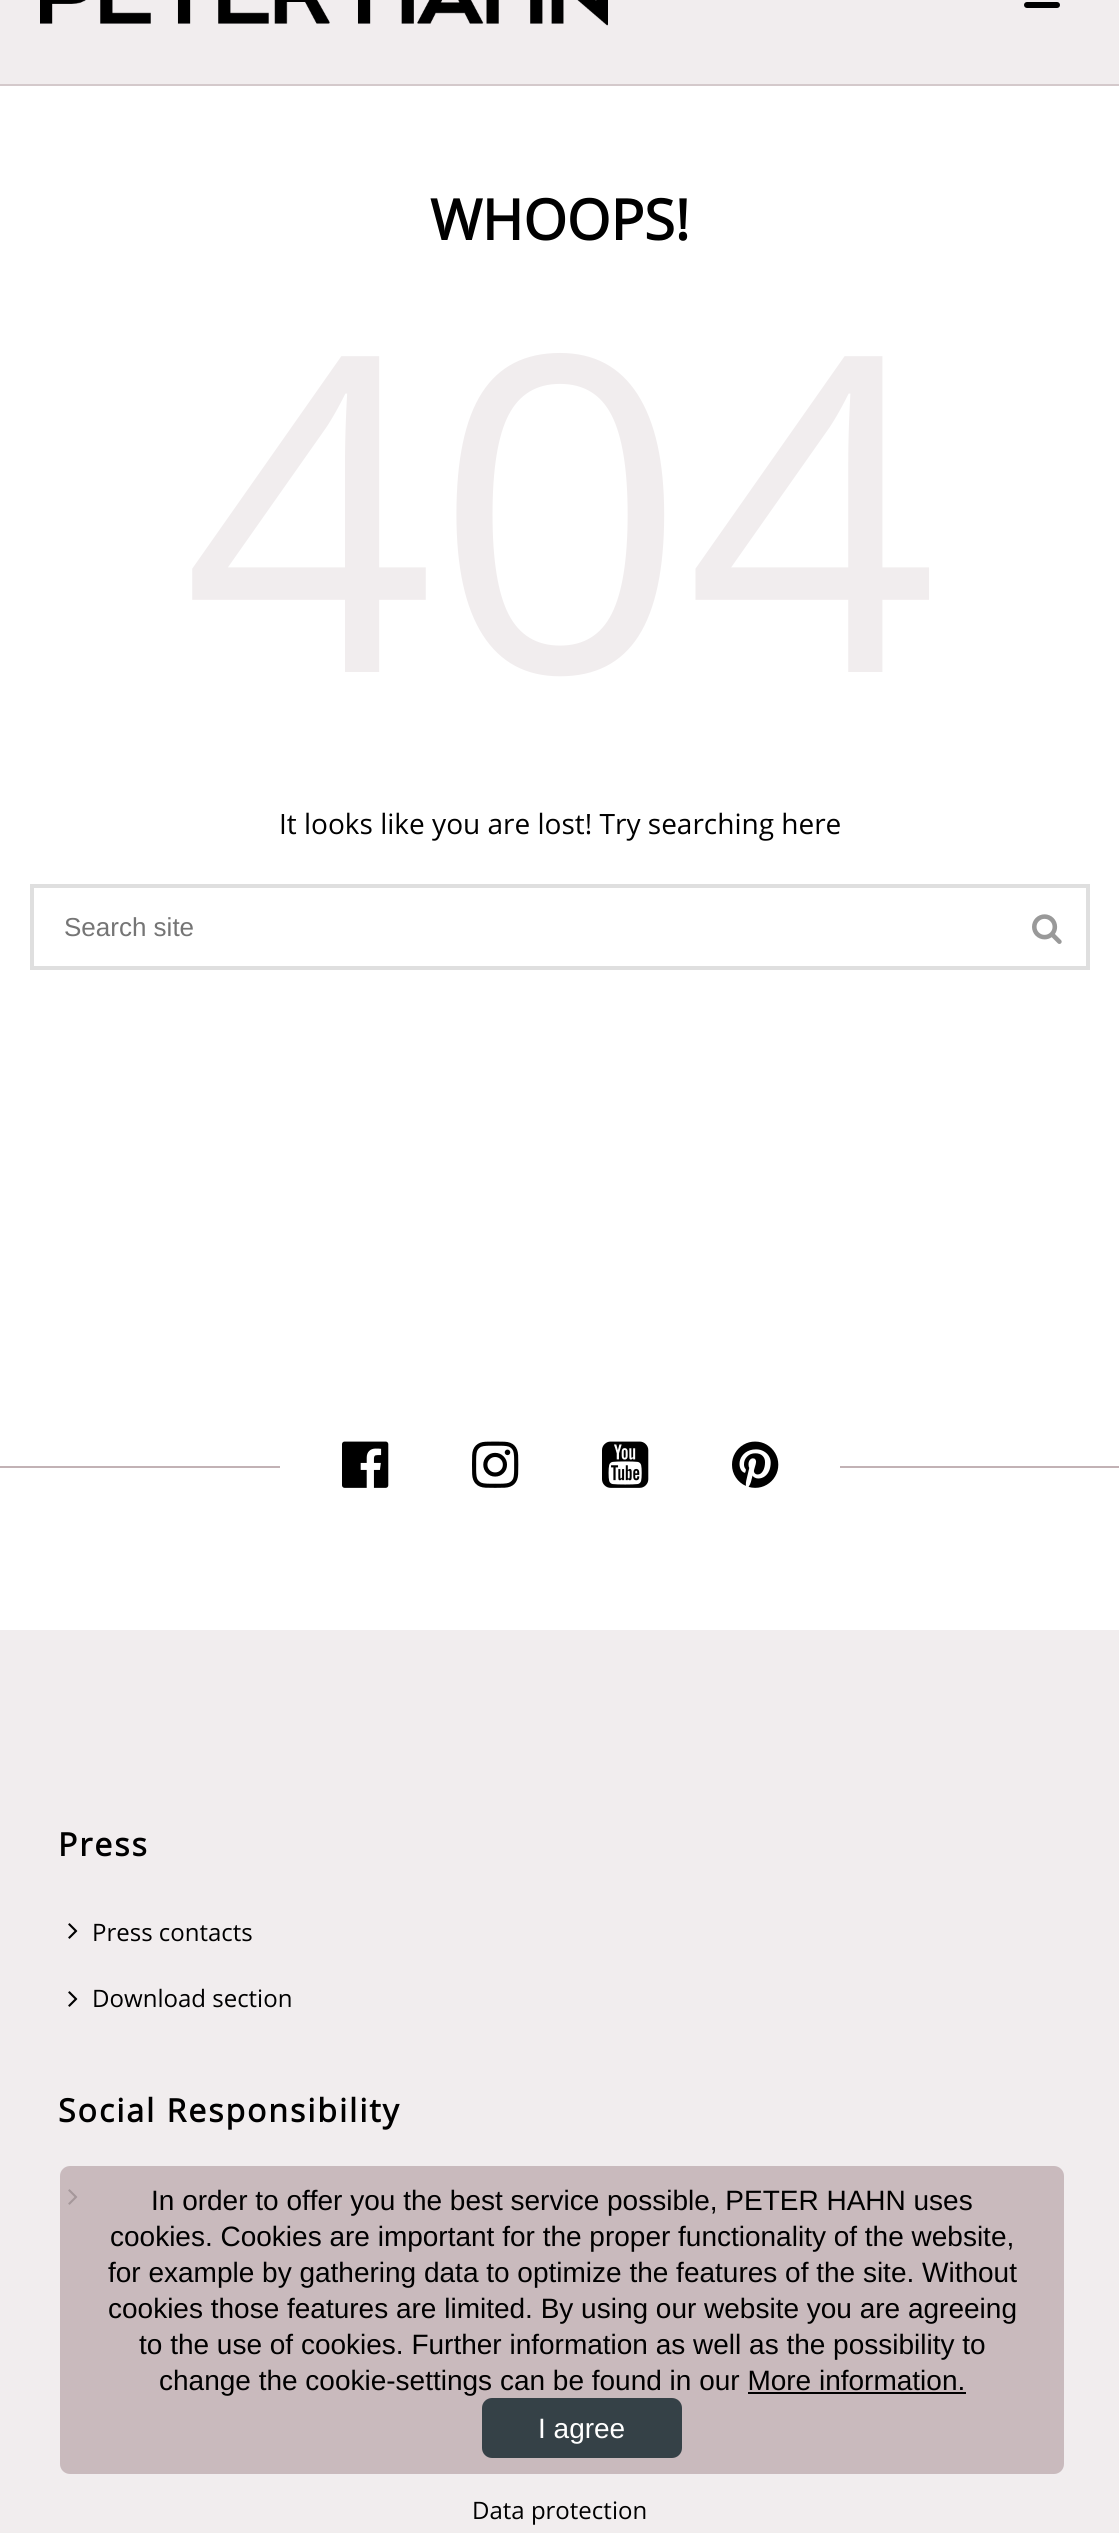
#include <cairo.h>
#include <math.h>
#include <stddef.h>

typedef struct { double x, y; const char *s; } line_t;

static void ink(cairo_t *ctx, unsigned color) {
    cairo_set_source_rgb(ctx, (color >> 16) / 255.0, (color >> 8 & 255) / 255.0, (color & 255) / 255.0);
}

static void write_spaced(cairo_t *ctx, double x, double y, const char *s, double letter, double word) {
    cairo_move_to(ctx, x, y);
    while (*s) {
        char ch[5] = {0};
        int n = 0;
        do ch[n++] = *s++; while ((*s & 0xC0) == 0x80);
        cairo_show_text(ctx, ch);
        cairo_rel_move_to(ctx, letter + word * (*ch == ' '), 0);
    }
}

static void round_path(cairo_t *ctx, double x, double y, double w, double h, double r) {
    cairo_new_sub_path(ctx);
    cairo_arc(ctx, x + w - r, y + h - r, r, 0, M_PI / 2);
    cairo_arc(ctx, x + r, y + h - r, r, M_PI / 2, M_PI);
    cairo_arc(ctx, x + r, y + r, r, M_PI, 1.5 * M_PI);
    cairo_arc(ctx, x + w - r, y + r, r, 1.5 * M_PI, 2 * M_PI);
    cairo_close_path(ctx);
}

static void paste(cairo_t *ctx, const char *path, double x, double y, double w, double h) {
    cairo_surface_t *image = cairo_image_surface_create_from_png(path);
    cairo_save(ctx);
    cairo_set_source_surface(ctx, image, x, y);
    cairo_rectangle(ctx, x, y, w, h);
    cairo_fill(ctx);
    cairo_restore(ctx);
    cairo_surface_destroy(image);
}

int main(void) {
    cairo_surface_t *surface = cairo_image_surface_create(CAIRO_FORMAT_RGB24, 1119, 2533);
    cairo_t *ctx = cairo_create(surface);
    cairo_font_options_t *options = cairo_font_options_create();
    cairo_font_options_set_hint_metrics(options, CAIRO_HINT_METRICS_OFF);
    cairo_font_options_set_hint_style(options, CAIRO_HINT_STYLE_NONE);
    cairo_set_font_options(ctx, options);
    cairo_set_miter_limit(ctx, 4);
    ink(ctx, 0xFFFFFF);
    cairo_paint(ctx);
    ink(ctx, 0xD4C9CB);
    cairo_rectangle(ctx, 0, 84, 1119, 2);
    cairo_fill(ctx);
    ink(ctx, 0xF1EDEE);
    cairo_rectangle(ctx, 0, 0, 1119, 84);
    cairo_fill(ctx);
    paste(ctx, "media/1.png", 40, 0, 568, 26);
    ink(ctx, 0x000000);
    round_path(ctx, 1024, 2, 36, 6, 3);
    cairo_fill(ctx);
    cairo_select_font_face(ctx, "Open Sans", CAIRO_FONT_SLANT_NORMAL, CAIRO_FONT_WEIGHT_BOLD);
    cairo_set_font_size(ctx, 56);
    cairo_move_to(ctx, 430, 240);
    cairo_show_text(ctx, "WHOOPS!");
    cairo_select_font_face(ctx, "Open Sans", CAIRO_FONT_SLANT_NORMAL, CAIRO_FONT_WEIGHT_NORMAL);
    cairo_set_font_size(ctx, 440);
    ink(ctx, 0xF1EDEE);
    cairo_move_to(ctx, 183, 672);
    cairo_show_text(ctx, "404");
    cairo_set_font_size(ctx, 28);
    ink(ctx, 0x000000);
    cairo_move_to(ctx, 279, 834);
    cairo_show_text(ctx, "It looks like you are lost! Try searching here");
    cairo_rectangle(ctx, 32, 886, 1056, 82);
    ink(ctx, 0xDFDFDF);
    cairo_set_line_width(ctx, 4);
    cairo_stroke(ctx);
    cairo_select_font_face(ctx, "Liberation Sans", CAIRO_FONT_SLANT_NORMAL, CAIRO_FONT_WEIGHT_NORMAL);
    cairo_set_font_size(ctx, 26);
    ink(ctx, 0x757575);
    cairo_move_to(ctx, 64, 936);
    cairo_show_text(ctx, "Search site");
    paste(ctx, "media/2.png", 1032, 914, 30, 30);
    ink(ctx, 0xC2B2B5);
    cairo_rectangle(ctx, 0, 1466, 1119, 2);
    cairo_fill(ctx);
    ink(ctx, 0xFFFFFF);
    cairo_rectangle(ctx, 280, 1466, 560, 2);
    cairo_fill(ctx);
    paste(ctx, "media/3.png", 342, 1441, 47, 47);
    paste(ctx, "media/4.png", 472, 1441, 47, 47);
    paste(ctx, "media/5.png", 602, 1441, 47, 47);
    paste(ctx, "media/6.png", 732, 1441, 47, 47);
    ink(ctx, 0xF1EDEE);
    cairo_rectangle(ctx, 0, 1630, 1119, 903);
    cairo_fill(ctx);
    cairo_select_font_face(ctx, "Open Sans", CAIRO_FONT_SLANT_NORMAL, CAIRO_FONT_WEIGHT_BOLD);
    cairo_set_font_size(ctx, 32);
    ink(ctx, 0x000000);
    write_spaced(ctx, 58, 1856, "Press", 2, 0);
    paste(ctx, "media/7.png", 68, 1923, 10, 16);
    cairo_select_font_face(ctx, "Open Sans", CAIRO_FONT_SLANT_NORMAL, CAIRO_FONT_WEIGHT_NORMAL);
    cairo_set_font_size(ctx, 24);
    cairo_move_to(ctx, 92, 1941);
    cairo_show_text(ctx, "Press contacts");
    paste(ctx, "media/7.png", 68, 1991, 10, 16);
    cairo_move_to(ctx, 92, 2007);
    cairo_show_text(ctx, "Download section");
    cairo_select_font_face(ctx, "Open Sans", CAIRO_FONT_SLANT_NORMAL, CAIRO_FONT_WEIGHT_BOLD);
    cairo_set_font_size(ctx, 32);
    write_spaced(ctx, 58, 2122, "Social Responsibility", 2, 0);
    paste(ctx, "media/7.png", 68, 2189, 10, 16);
    cairo_select_font_face(ctx, "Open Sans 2", CAIRO_FONT_SLANT_NORMAL, CAIRO_FONT_WEIGHT_NORMAL);
    cairo_set_font_size(ctx, 24);
    cairo_move_to(ctx, 472, 2519);
    cairo_show_text(ctx, "Data protection");
    cairo_set_source_rgba(ctx, 0.761, 0.698, 0.71, 0.85);
    round_path(ctx, 60, 2166, 1004, 308, 10);
    cairo_fill(ctx);
    cairo_select_font_face(ctx, "Liberation Sans", CAIRO_FONT_SLANT_NORMAL, CAIRO_FONT_WEIGHT_NORMAL);
    cairo_set_font_size(ctx, 28);
    ink(ctx, 0x000000);
    {
        static const line_t items[] = {
            {151, 2210, "In order to offer you the best service possible, PETER HAHN uses"},
            {110, 2246, "cookies. Cookies are important for the proper functionality of the website,"},
            {108, 2282, "for example by gathering data to optimize the features of the site. Without"},
            {108, 2318, "cookies those features are limited. By using our website you are agreeing"},
            {139, 2354, "to the use of cookies. Further information as well as the possibility to"},
            {159, 2390, "change the cookie-settings can be found in our More information."},
        };
        for (size_t i = 0; i < sizeof items / sizeof *items; i++) {
            cairo_move_to(ctx, items[i].x, items[i].y);
            cairo_show_text(ctx, items[i].s);
        }
    }
    cairo_rectangle(ctx, 748, 2392, 218, 2);
    cairo_fill(ctx);
    ink(ctx, 0x354147);
    round_path(ctx, 483, 2399, 198, 58, 9);
    cairo_fill_preserve(ctx);
    cairo_set_line_width(ctx, 2);
    cairo_stroke(ctx);
    ink(ctx, 0xFFFFFF);
    cairo_move_to(ctx, 538, 2438);
    cairo_show_text(ctx, "I agree");
    cairo_surface_write_to_png(surface, "image.png");
    cairo_font_options_destroy(options);
    cairo_destroy(ctx);
    cairo_surface_destroy(surface);
    return 0;
}
